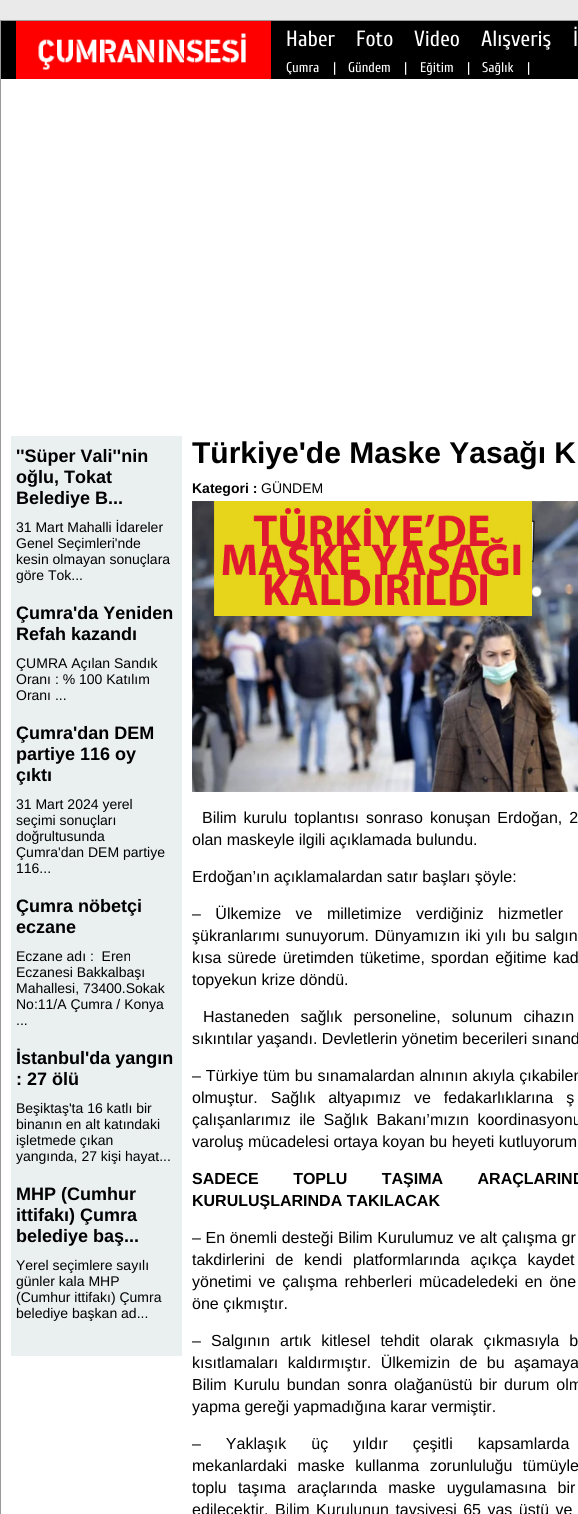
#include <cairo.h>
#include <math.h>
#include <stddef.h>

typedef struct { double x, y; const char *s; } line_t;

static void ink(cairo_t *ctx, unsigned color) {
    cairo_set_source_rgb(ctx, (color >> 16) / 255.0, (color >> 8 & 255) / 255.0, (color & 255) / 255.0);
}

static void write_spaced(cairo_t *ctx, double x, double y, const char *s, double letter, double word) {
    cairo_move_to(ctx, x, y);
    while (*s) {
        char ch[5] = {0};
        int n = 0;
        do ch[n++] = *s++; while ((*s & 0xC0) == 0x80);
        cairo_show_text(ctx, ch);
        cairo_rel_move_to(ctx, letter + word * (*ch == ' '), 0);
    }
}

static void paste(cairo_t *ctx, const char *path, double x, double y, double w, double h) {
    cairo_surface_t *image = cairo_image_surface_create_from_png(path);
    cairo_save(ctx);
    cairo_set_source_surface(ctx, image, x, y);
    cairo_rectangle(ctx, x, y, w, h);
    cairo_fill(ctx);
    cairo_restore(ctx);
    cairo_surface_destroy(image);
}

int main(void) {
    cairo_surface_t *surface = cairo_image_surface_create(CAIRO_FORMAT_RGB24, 578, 1514);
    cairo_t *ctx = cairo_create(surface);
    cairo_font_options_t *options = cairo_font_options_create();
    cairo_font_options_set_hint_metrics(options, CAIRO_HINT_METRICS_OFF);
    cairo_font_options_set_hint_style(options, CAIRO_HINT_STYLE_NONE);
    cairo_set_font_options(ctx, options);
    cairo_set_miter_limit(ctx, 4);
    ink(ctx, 0xEAEAEA);
    cairo_paint(ctx);
    ink(ctx, 0xFFFFFF);
    cairo_rectangle(ctx, 1, 79, 577, 1435);
    cairo_fill(ctx);
    cairo_rectangle(ctx, 0.5, 20.5, 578, 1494);
    ink(ctx, 0x999999);
    cairo_set_line_width(ctx, 1);
    cairo_stroke(ctx);
    ink(ctx, 0x000000);
    cairo_rectangle(ctx, 1, 21, 577, 58);
    cairo_fill(ctx);
    ink(ctx, 0xFE0000);
    cairo_rectangle(ctx, 16, 21, 255, 58);
    cairo_fill(ctx);
    paste(ctx, "media/1.png", 38, 33, 208, 37);
    cairo_select_font_face(ctx, "Cuprum", CAIRO_FONT_SLANT_NORMAL, CAIRO_FONT_WEIGHT_NORMAL);
    cairo_set_font_size(ctx, 22);
    ink(ctx, 0xFFFFFF);
    {
        static const line_t items[] = {
            {286, 46, "Haber"},
            {356, 46, "Foto"},
            {414, 46, "Video"},
            {481, 46, "Alışveriş"},
            {573, 46, "İ"},
        };
        for (size_t i = 0; i < sizeof items / sizeof *items; i++) {
            cairo_move_to(ctx, items[i].x, items[i].y);
            cairo_show_text(ctx, items[i].s);
        }
    }
    cairo_set_font_size(ctx, 14);
    {
        static const line_t items[] = {
            {286, 72, "Çumra"},
            {333, 72, "|"},
            {348, 72, "Gündem"},
            {404, 72, "|"},
            {420, 72, "Eğitim"},
            {467, 72, "|"},
            {482, 72, "Sağlık"},
            {527, 72, "|"},
        };
        for (size_t i = 0; i < sizeof items / sizeof *items; i++) {
            cairo_move_to(ctx, items[i].x, items[i].y);
            cairo_show_text(ctx, items[i].s);
        }
    }
    ink(ctx, 0xEAEFEF);
    cairo_rectangle(ctx, 11, 436, 171, 920);
    cairo_fill(ctx);
    cairo_select_font_face(ctx, "Liberation Sans", CAIRO_FONT_SLANT_NORMAL, CAIRO_FONT_WEIGHT_BOLD);
    cairo_set_font_size(ctx, 18);
    ink(ctx, 0x000000);
    {
        static const line_t items[] = {
            {16, 462, "''Süper Vali''nin"},
            {16, 483, "oğlu, Tokat"},
            {16, 504, "Belediye B..."},
        };
        for (size_t i = 0; i < sizeof items / sizeof *items; i++) {
            cairo_move_to(ctx, items[i].x, items[i].y);
            cairo_show_text(ctx, items[i].s);
        }
    }
    cairo_select_font_face(ctx, "Liberation Sans", CAIRO_FONT_SLANT_NORMAL, CAIRO_FONT_WEIGHT_NORMAL);
    cairo_set_font_size(ctx, 14);
    {
        static const line_t items[] = {
            {16, 532, "31 Mart Mahalli İdareler"},
            {16, 548, "Genel Seçimleri'nde"},
            {16, 564, "kesin olmayan sonuçlara"},
            {16, 580, "göre Tok..."},
        };
        for (size_t i = 0; i < sizeof items / sizeof *items; i++) {
            cairo_move_to(ctx, items[i].x, items[i].y);
            cairo_show_text(ctx, items[i].s);
        }
    }
    cairo_select_font_face(ctx, "Liberation Sans", CAIRO_FONT_SLANT_NORMAL, CAIRO_FONT_WEIGHT_BOLD);
    cairo_set_font_size(ctx, 18);
    cairo_move_to(ctx, 16, 619);
    cairo_show_text(ctx, "Çumra'da Yeniden");
    cairo_move_to(ctx, 16, 640);
    cairo_show_text(ctx, "Refah kazandı");
    cairo_select_font_face(ctx, "Liberation Sans", CAIRO_FONT_SLANT_NORMAL, CAIRO_FONT_WEIGHT_NORMAL);
    cairo_set_font_size(ctx, 14);
    {
        static const line_t items[] = {
            {16, 668, "ÇUMRA Açılan Sandık"},
            {16, 684, "Oranı : % 100 Katılım"},
            {16, 700, "Oranı ..."},
        };
        for (size_t i = 0; i < sizeof items / sizeof *items; i++) {
            cairo_move_to(ctx, items[i].x, items[i].y);
            cairo_show_text(ctx, items[i].s);
        }
    }
    cairo_select_font_face(ctx, "Liberation Sans", CAIRO_FONT_SLANT_NORMAL, CAIRO_FONT_WEIGHT_BOLD);
    cairo_set_font_size(ctx, 18);
    {
        static const line_t items[] = {
            {16, 739, "Çumra'dan DEM"},
            {16, 760, "partiye 116 oy"},
            {16, 781, "çıktı"},
        };
        for (size_t i = 0; i < sizeof items / sizeof *items; i++) {
            cairo_move_to(ctx, items[i].x, items[i].y);
            cairo_show_text(ctx, items[i].s);
        }
    }
    cairo_select_font_face(ctx, "Liberation Sans", CAIRO_FONT_SLANT_NORMAL, CAIRO_FONT_WEIGHT_NORMAL);
    cairo_set_font_size(ctx, 14);
    {
        static const line_t items[] = {
            {16, 809, "31 Mart 2024 yerel"},
            {16, 825, "seçimi sonuçları"},
            {16, 841, "doğrultusunda"},
            {16, 857, "Çumra'dan DEM partiye"},
            {16, 873, "116..."},
        };
        for (size_t i = 0; i < sizeof items / sizeof *items; i++) {
            cairo_move_to(ctx, items[i].x, items[i].y);
            cairo_show_text(ctx, items[i].s);
        }
    }
    cairo_select_font_face(ctx, "Liberation Sans", CAIRO_FONT_SLANT_NORMAL, CAIRO_FONT_WEIGHT_BOLD);
    cairo_set_font_size(ctx, 18);
    cairo_move_to(ctx, 16, 912);
    cairo_show_text(ctx, "Çumra nöbetçi");
    cairo_move_to(ctx, 16, 933);
    cairo_show_text(ctx, "eczane");
    cairo_select_font_face(ctx, "Liberation Sans", CAIRO_FONT_SLANT_NORMAL, CAIRO_FONT_WEIGHT_NORMAL);
    cairo_set_font_size(ctx, 14);
    {
        static const line_t items[] = {
            {16, 961, "Eczane adı :  Eren"},
            {16, 977, "Eczanesi Bakkalbaşı"},
            {16, 993, "Mahallesi, 73400.Sokak"},
            {16, 1009, "No:11/A Çumra / Konya"},
            {16, 1025, "..."},
        };
        for (size_t i = 0; i < sizeof items / sizeof *items; i++) {
            cairo_move_to(ctx, items[i].x, items[i].y);
            cairo_show_text(ctx, items[i].s);
        }
    }
    cairo_select_font_face(ctx, "Liberation Sans", CAIRO_FONT_SLANT_NORMAL, CAIRO_FONT_WEIGHT_BOLD);
    cairo_set_font_size(ctx, 18);
    cairo_move_to(ctx, 16, 1064);
    cairo_show_text(ctx, "İstanbul'da yangın");
    cairo_move_to(ctx, 16, 1085);
    cairo_show_text(ctx, ": 27 ölü");
    cairo_select_font_face(ctx, "Liberation Sans", CAIRO_FONT_SLANT_NORMAL, CAIRO_FONT_WEIGHT_NORMAL);
    cairo_set_font_size(ctx, 14);
    {
        static const line_t items[] = {
            {16, 1113, "Beşiktaş'ta 16 katlı bir"},
            {16, 1129, "binanın en alt katındaki"},
            {16, 1145, "işletmede çıkan"},
            {16, 1161, "yangında, 27 kişi hayat..."},
        };
        for (size_t i = 0; i < sizeof items / sizeof *items; i++) {
            cairo_move_to(ctx, items[i].x, items[i].y);
            cairo_show_text(ctx, items[i].s);
        }
    }
    cairo_select_font_face(ctx, "Liberation Sans", CAIRO_FONT_SLANT_NORMAL, CAIRO_FONT_WEIGHT_BOLD);
    cairo_set_font_size(ctx, 18);
    {
        static const line_t items[] = {
            {16, 1200, "MHP (Cumhur"},
            {16, 1221, "ittifakı) Çumra"},
            {16, 1242, "belediye baş..."},
        };
        for (size_t i = 0; i < sizeof items / sizeof *items; i++) {
            cairo_move_to(ctx, items[i].x, items[i].y);
            cairo_show_text(ctx, items[i].s);
        }
    }
    cairo_select_font_face(ctx, "Liberation Sans", CAIRO_FONT_SLANT_NORMAL, CAIRO_FONT_WEIGHT_NORMAL);
    cairo_set_font_size(ctx, 14);
    {
        static const line_t items[] = {
            {16, 1270, "Yerel seçimlere sayılı"},
            {16, 1286, "günler kala MHP"},
            {16, 1302, "(Cumhur ittifakı) Çumra"},
            {16, 1318, "belediye başkan ad..."},
        };
        for (size_t i = 0; i < sizeof items / sizeof *items; i++) {
            cairo_move_to(ctx, items[i].x, items[i].y);
            cairo_show_text(ctx, items[i].s);
        }
    }
    cairo_select_font_face(ctx, "Liberation Sans", CAIRO_FONT_SLANT_NORMAL, CAIRO_FONT_WEIGHT_BOLD);
    cairo_set_font_size(ctx, 30);
    cairo_move_to(ctx, 192, 463);
    cairo_show_text(ctx, "Türkiye'de Maske Yasağı K");
    cairo_set_font_size(ctx, 14);
    cairo_move_to(ctx, 192, 493);
    cairo_show_text(ctx, "Kategori :");
    cairo_select_font_face(ctx, "Liberation Sans", CAIRO_FONT_SLANT_NORMAL, CAIRO_FONT_WEIGHT_NORMAL);
    cairo_move_to(ctx, 261, 493);
    cairo_show_text(ctx, "GÜNDEM");
    paste(ctx, "media/2.png", 192, 501, 386, 291);
    cairo_set_font_size(ctx, 16);
    write_spaced(ctx, 202, 823, "Bilim kurulu toplantısı sonraso konuşan Erdoğan, 2", 0, 2.5);
    cairo_move_to(ctx, 192, 845);
    cairo_show_text(ctx, "olan maskeyle ilgili açıklamada bulundu.");
    cairo_move_to(ctx, 192, 882);
    cairo_show_text(ctx, "Erdoğan’ın açıklamalardan satır başları şöyle:");
    write_spaced(ctx, 192, 919, "– Ülkemize ve milletimize verdiğiniz hizmetler", 0, 10);
    write_spaced(ctx, 192, 941, "şükranlarımı sunuyorum. Dünyamızın iki yılı bu salgın", 0, 1);
    write_spaced(ctx, 192, 963, "kısa sürede üretimden tüketime, spordan eğitime kad", 0, 1.75);
    cairo_move_to(ctx, 192, 985);
    cairo_show_text(ctx, "topyekun krize döndü.");
    write_spaced(ctx, 203, 1022, "Hastaneden sağlık personeline, solunum cihazın", 0, 6.75);
    cairo_move_to(ctx, 192, 1044);
    cairo_show_text(ctx, "sıkıntılar yaşandı. Devletlerin yönetim becerileri sınand");
    write_spaced(ctx, 192, 1081, "– Türkiye tüm bu sınamalardan alnının akıyla çıkabilen", 0, 0.5);
    write_spaced(ctx, 192, 1103, "olmuştur. Sağlık altyapımız ve fedakarlıklarına ş", 0, 8.5);
    write_spaced(ctx, 192, 1125, "çalışanlarımız ile Sağlık Bakanı’mızın koordinasyonu", 0, 4);
    cairo_move_to(ctx, 192, 1147);
    cairo_show_text(ctx, "varoluş mücadelesi ortaya koyan bu heyeti kutluyorum");
    cairo_select_font_face(ctx, "Liberation Sans", CAIRO_FONT_SLANT_NORMAL, CAIRO_FONT_WEIGHT_BOLD);
    write_spaced(ctx, 192, 1184, "SADECE TOPLU TAŞIMA ARAÇLARIND", 0, 30);
    cairo_move_to(ctx, 192, 1206);
    cairo_show_text(ctx, "KURULUŞLARINDA TAKILACAK");
    cairo_select_font_face(ctx, "Liberation Sans", CAIRO_FONT_SLANT_NORMAL, CAIRO_FONT_WEIGHT_NORMAL);
    write_spaced(ctx, 192, 1243, "– En önemli desteği Bilim Kurulumuz ve alt çalışma gr", 0, 0.25);
    write_spaced(ctx, 192, 1265, "takdirlerini de kendi platformlarında açıkça kaydet", 0, 6.25);
    write_spaced(ctx, 192, 1287, "yönetimi ve çalışma rehberleri mücadeledeki en öne", 0, 2.5);
    cairo_move_to(ctx, 192, 1309);
    cairo_show_text(ctx, "öne çıkmıştır.");
    write_spaced(ctx, 192, 1346, "– Salgının artık kitlesel tehdit olarak çıkmasıyla b", 0, 5.75);
    write_spaced(ctx, 192, 1368, "kısıtlamaları kaldırmıştır. Ülkemizin de bu aşamaya", 0, 5);
    write_spaced(ctx, 192, 1390, "Bilim Kurulu bundan sonra olağanüstü bir durum olm", 0, 2.5);
    cairo_move_to(ctx, 192, 1412);
    cairo_show_text(ctx, "yapma gereği yapmadığına karar vermiştir.");
    write_spaced(ctx, 192, 1449, "– Yaklaşık üç yıldır çeşitli kapsamlarda", 0, 20.5);
    write_spaced(ctx, 192, 1471, "mekanlardaki maske kullanma zorunluluğu tümüyle", 0, 6);
    write_spaced(ctx, 192, 1493, "toplu taşıma araçlarında maske uygulamasına bir", 0, 6.75);
    write_spaced(ctx, 192, 1515, "edilecektir. Bilim Kurulunun tavsiyesi 65 yaş üstü ve", 0, 2);
    cairo_surface_write_to_png(surface, "image.png");
    cairo_font_options_destroy(options);
    cairo_destroy(ctx);
    cairo_surface_destroy(surface);
    return 0;
}
